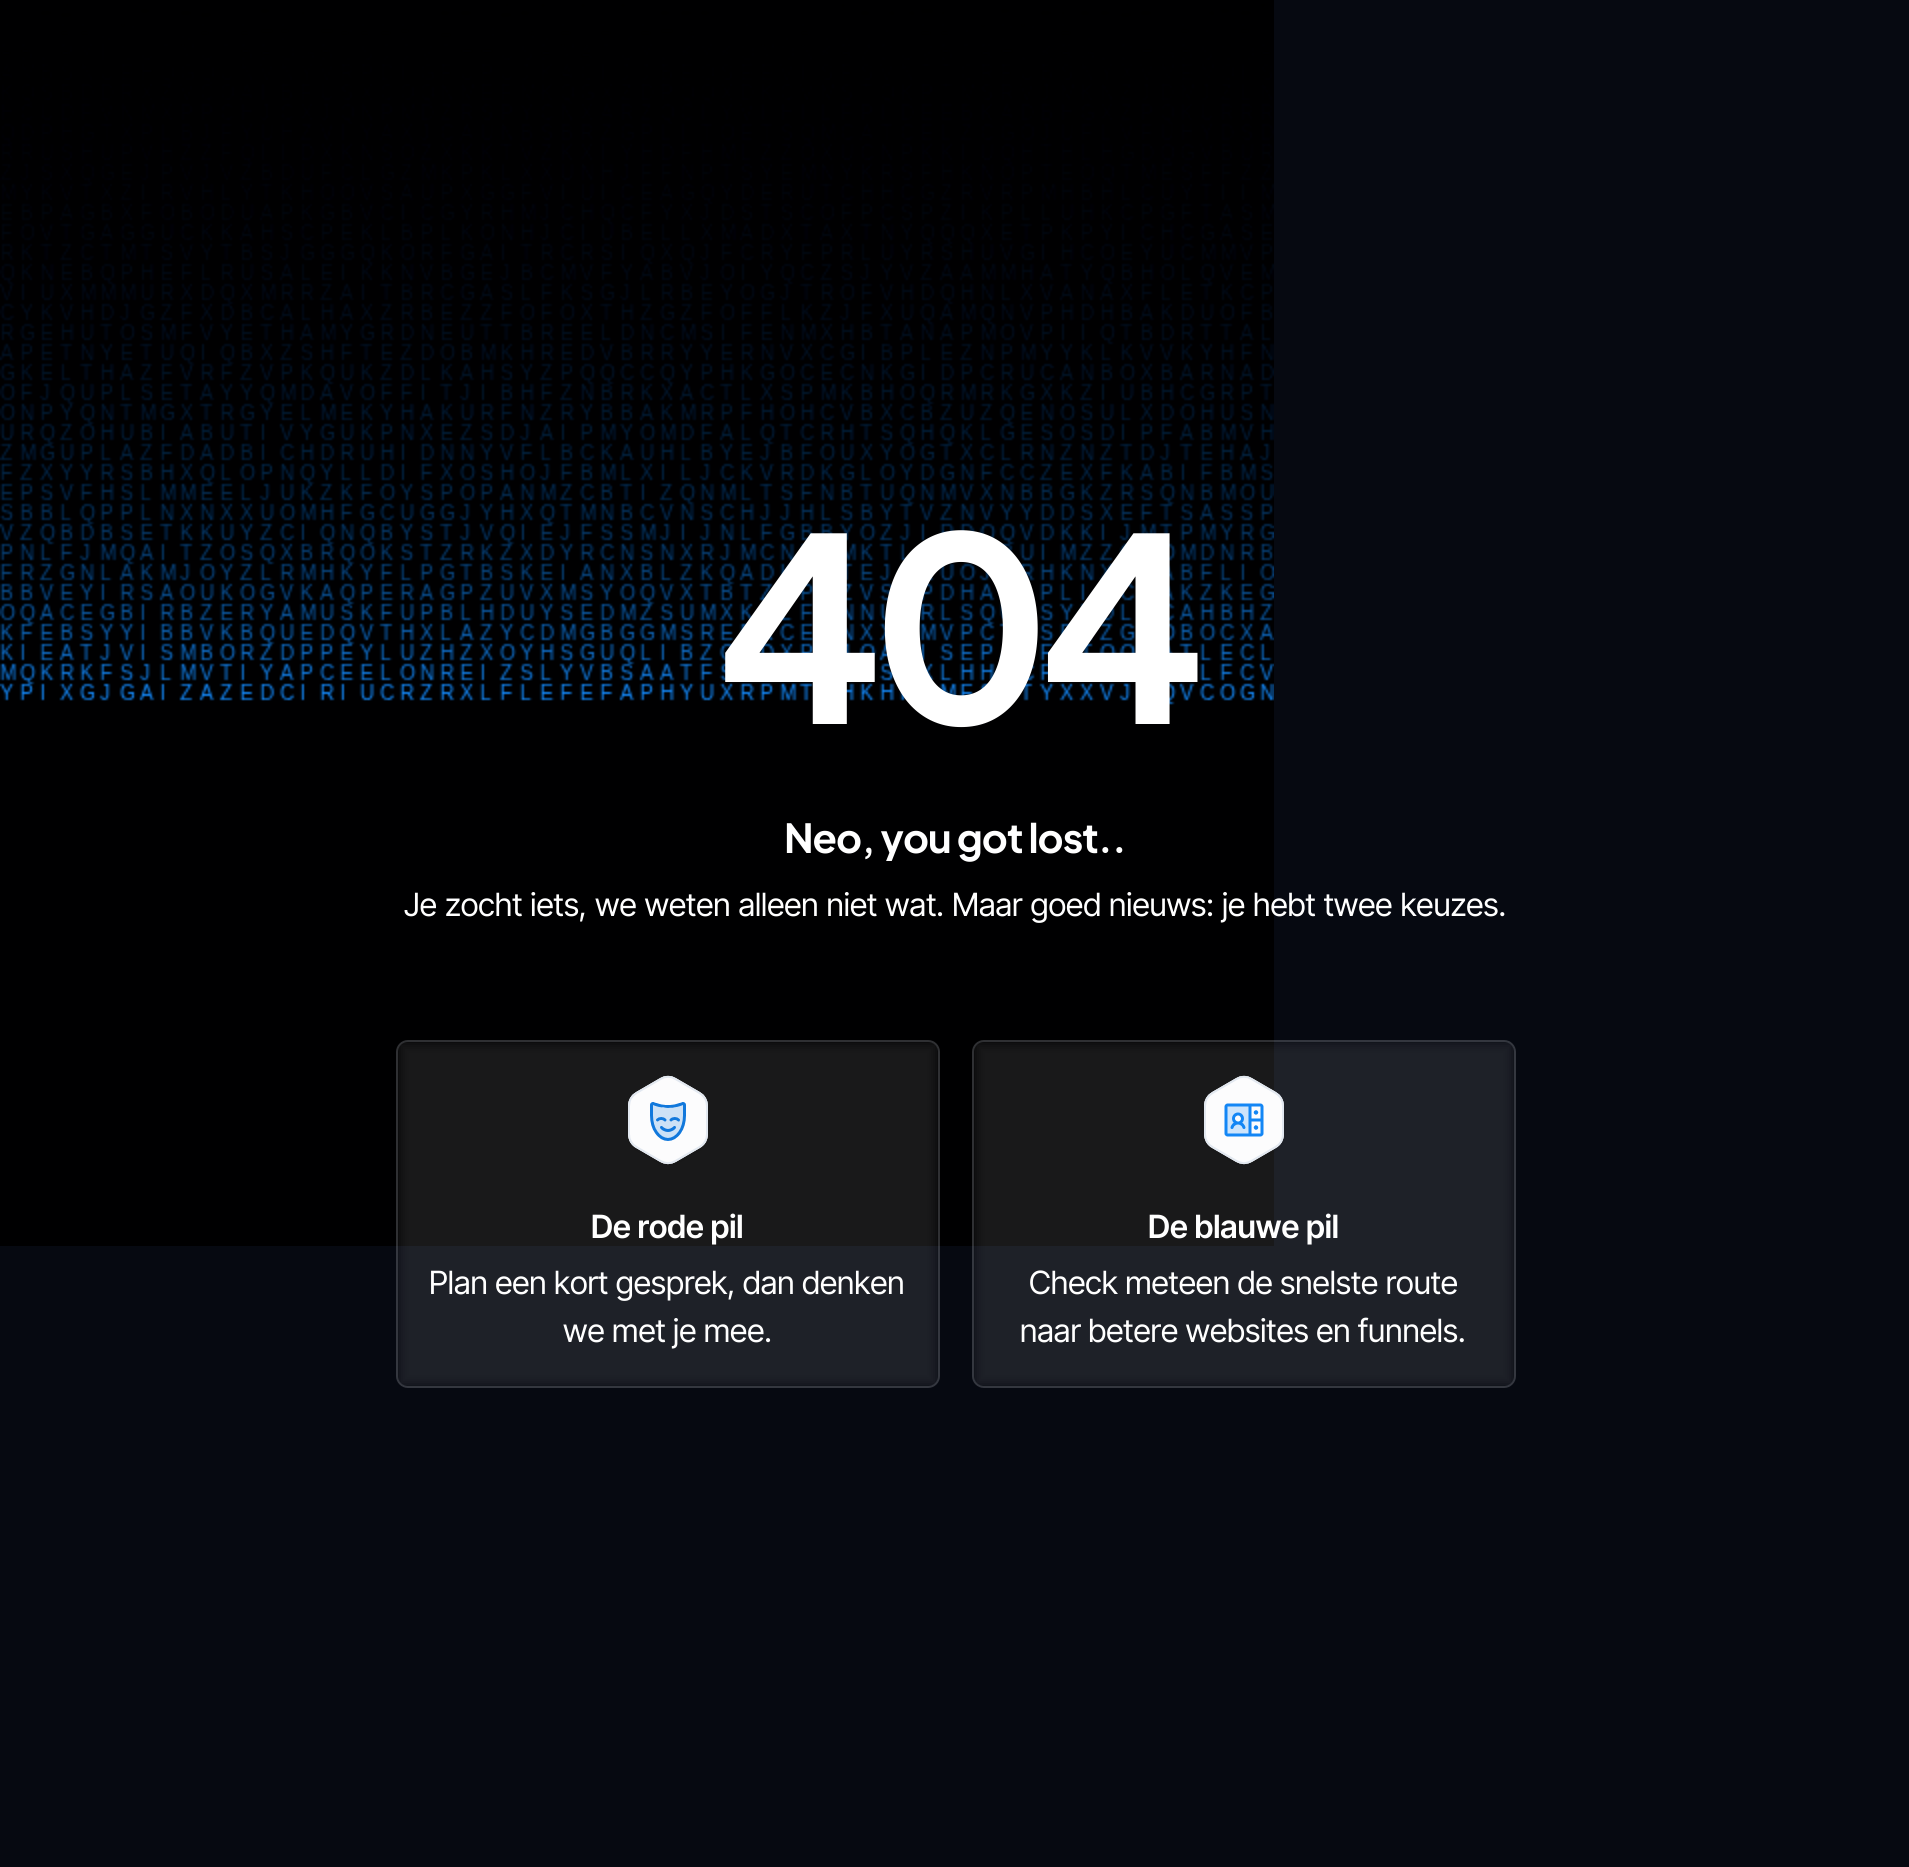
#include <cairo.h>
#include <math.h>
#include <stddef.h>


static void ink(cairo_t *ctx, unsigned color) {
    cairo_set_source_rgb(ctx, (color >> 16) / 255.0, (color >> 8 & 255) / 255.0, (color & 255) / 255.0);
}

static void write_spaced(cairo_t *ctx, double x, double y, const char *s, double letter, double word) {
    cairo_move_to(ctx, x, y);
    while (*s) {
        char ch[5] = {0};
        int n = 0;
        do ch[n++] = *s++; while ((*s & 0xC0) == 0x80);
        cairo_show_text(ctx, ch);
        cairo_rel_move_to(ctx, letter + word * (*ch == ' '), 0);
    }
}

static void round_path(cairo_t *ctx, double x, double y, double w, double h, double r) {
    cairo_new_sub_path(ctx);
    cairo_arc(ctx, x + w - r, y + h - r, r, 0, M_PI / 2);
    cairo_arc(ctx, x + r, y + h - r, r, M_PI / 2, M_PI);
    cairo_arc(ctx, x + r, y + r, r, M_PI, 1.5 * M_PI);
    cairo_arc(ctx, x + w - r, y + r, r, 1.5 * M_PI, 2 * M_PI);
    cairo_close_path(ctx);
}

static void blur_box(cairo_t *ctx, double x, double y, double w, double h, double r, double blur, double alpha) {
    cairo_push_group_with_content(ctx, CAIRO_CONTENT_ALPHA);
    cairo_set_operator(ctx, CAIRO_OPERATOR_SOURCE);
    for (int i = 15; i >= -15 && fmin(w, h) + blur * i / 3 > 0; i -= 2) {
        double e = blur * i / 6;
        cairo_set_source_rgba(ctx, 0, 0, 0, alpha * erfc((i - 1) / 8.5) / 2);
        round_path(ctx, x - e, y - e, w + 2 * e, h + 2 * e, fmax(0, fmin(r + e + blur * .6, fmin(w, h) / 2 + e)));
        cairo_fill(ctx);
    }
    cairo_pattern_t *soft = cairo_pop_group(ctx);
    cairo_mask(ctx, soft);
    cairo_pattern_destroy(soft);
}

static void paste(cairo_t *ctx, const char *path, double x, double y, double w, double h) {
    cairo_surface_t *image = cairo_image_surface_create_from_png(path);
    cairo_save(ctx);
    cairo_set_source_surface(ctx, image, x, y);
    cairo_rectangle(ctx, x, y, w, h);
    cairo_fill(ctx);
    cairo_restore(ctx);
    cairo_surface_destroy(image);
}

int main(void) {
    cairo_surface_t *surface = cairo_image_surface_create(CAIRO_FORMAT_RGB24, 1909, 1867);
    cairo_t *ctx = cairo_create(surface);
    cairo_font_options_t *options = cairo_font_options_create();
    cairo_font_options_set_hint_metrics(options, CAIRO_HINT_METRICS_OFF);
    cairo_font_options_set_hint_style(options, CAIRO_HINT_STYLE_NONE);
    cairo_set_font_options(ctx, options);
    cairo_set_miter_limit(ctx, 4);
    ink(ctx, 0x060911);
    cairo_paint(ctx);
    paste(ctx, "media/1.png", 0, 0, 1274, 1246);
    cairo_select_font_face(ctx, "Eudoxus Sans", CAIRO_FONT_SLANT_NORMAL, CAIRO_FONT_WEIGHT_BOLD);
    cairo_set_font_size(ctx, 256);
    ink(ctx, 0xFFFFFF);
    write_spaced(ctx, 716, 724, "404", -13, 0);
    cairo_set_font_size(ctx, 40);
    write_spaced(ctx, 784, 853, "Neo, you got lost..", -1, 0);
    cairo_select_font_face(ctx, "Inter Tight", CAIRO_FONT_SLANT_NORMAL, CAIRO_FONT_WEIGHT_NORMAL);
    cairo_set_font_size(ctx, 32);
    write_spaced(ctx, 404, 916, "Je zocht iets, we weten alleen niet wat. Maar goed nieuws: je hebt twee keuzes.", 0, 0.5);
    cairo_save(ctx);
    round_path(ctx, 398, 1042, 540, 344, 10);
    cairo_clip(ctx);
    ink(ctx, 0xFFFFFF);
    blur_box(ctx, 398, 1042, 540, 344, 0, 6, 0.1);
    cairo_restore(ctx);
    round_path(ctx, 397, 1041, 542, 346, 11);
    cairo_set_source_rgba(ctx, 0.886, 0.91, 0.941, 0.21);
    cairo_stroke(ctx);
    paste(ctx, "media/2.png", 628, 1075, 80, 90);
    cairo_select_font_face(ctx, "Inter Tight SemiBold", CAIRO_FONT_SLANT_NORMAL, CAIRO_FONT_WEIGHT_NORMAL);
    ink(ctx, 0xFFFFFF);
    cairo_move_to(ctx, 591, 1238);
    cairo_show_text(ctx, "De rode pil");
    cairo_select_font_face(ctx, "Inter Tight", CAIRO_FONT_SLANT_NORMAL, CAIRO_FONT_WEIGHT_NORMAL);
    cairo_move_to(ctx, 429, 1294);
    cairo_show_text(ctx, "Plan een kort gesprek, dan denken");
    cairo_move_to(ctx, 563, 1342);
    cairo_show_text(ctx, "we met je mee.");
    cairo_save(ctx);
    round_path(ctx, 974, 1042, 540, 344, 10);
    cairo_clip(ctx);
    ink(ctx, 0xFFFFFF);
    blur_box(ctx, 974, 1042, 540, 344, 0, 6, 0.1);
    cairo_restore(ctx);
    round_path(ctx, 973, 1041, 542, 346, 11);
    cairo_set_source_rgba(ctx, 0.886, 0.91, 0.941, 0.21);
    cairo_stroke(ctx);
    paste(ctx, "media/3.png", 1204, 1075, 80, 90);
    cairo_select_font_face(ctx, "Inter Tight SemiBold", CAIRO_FONT_SLANT_NORMAL, CAIRO_FONT_WEIGHT_NORMAL);
    ink(ctx, 0xFFFFFF);
    cairo_move_to(ctx, 1148, 1238);
    cairo_show_text(ctx, "De blauwe pil");
    cairo_select_font_face(ctx, "Inter Tight", CAIRO_FONT_SLANT_NORMAL, CAIRO_FONT_WEIGHT_NORMAL);
    cairo_move_to(ctx, 1029, 1294);
    cairo_show_text(ctx, "Check meteen de snelste route");
    cairo_move_to(ctx, 1020, 1342);
    cairo_show_text(ctx, "naar betere websites en funnels.");
    cairo_surface_write_to_png(surface, "image.png");
    cairo_font_options_destroy(options);
    cairo_destroy(ctx);
    cairo_surface_destroy(surface);
    return 0;
}
